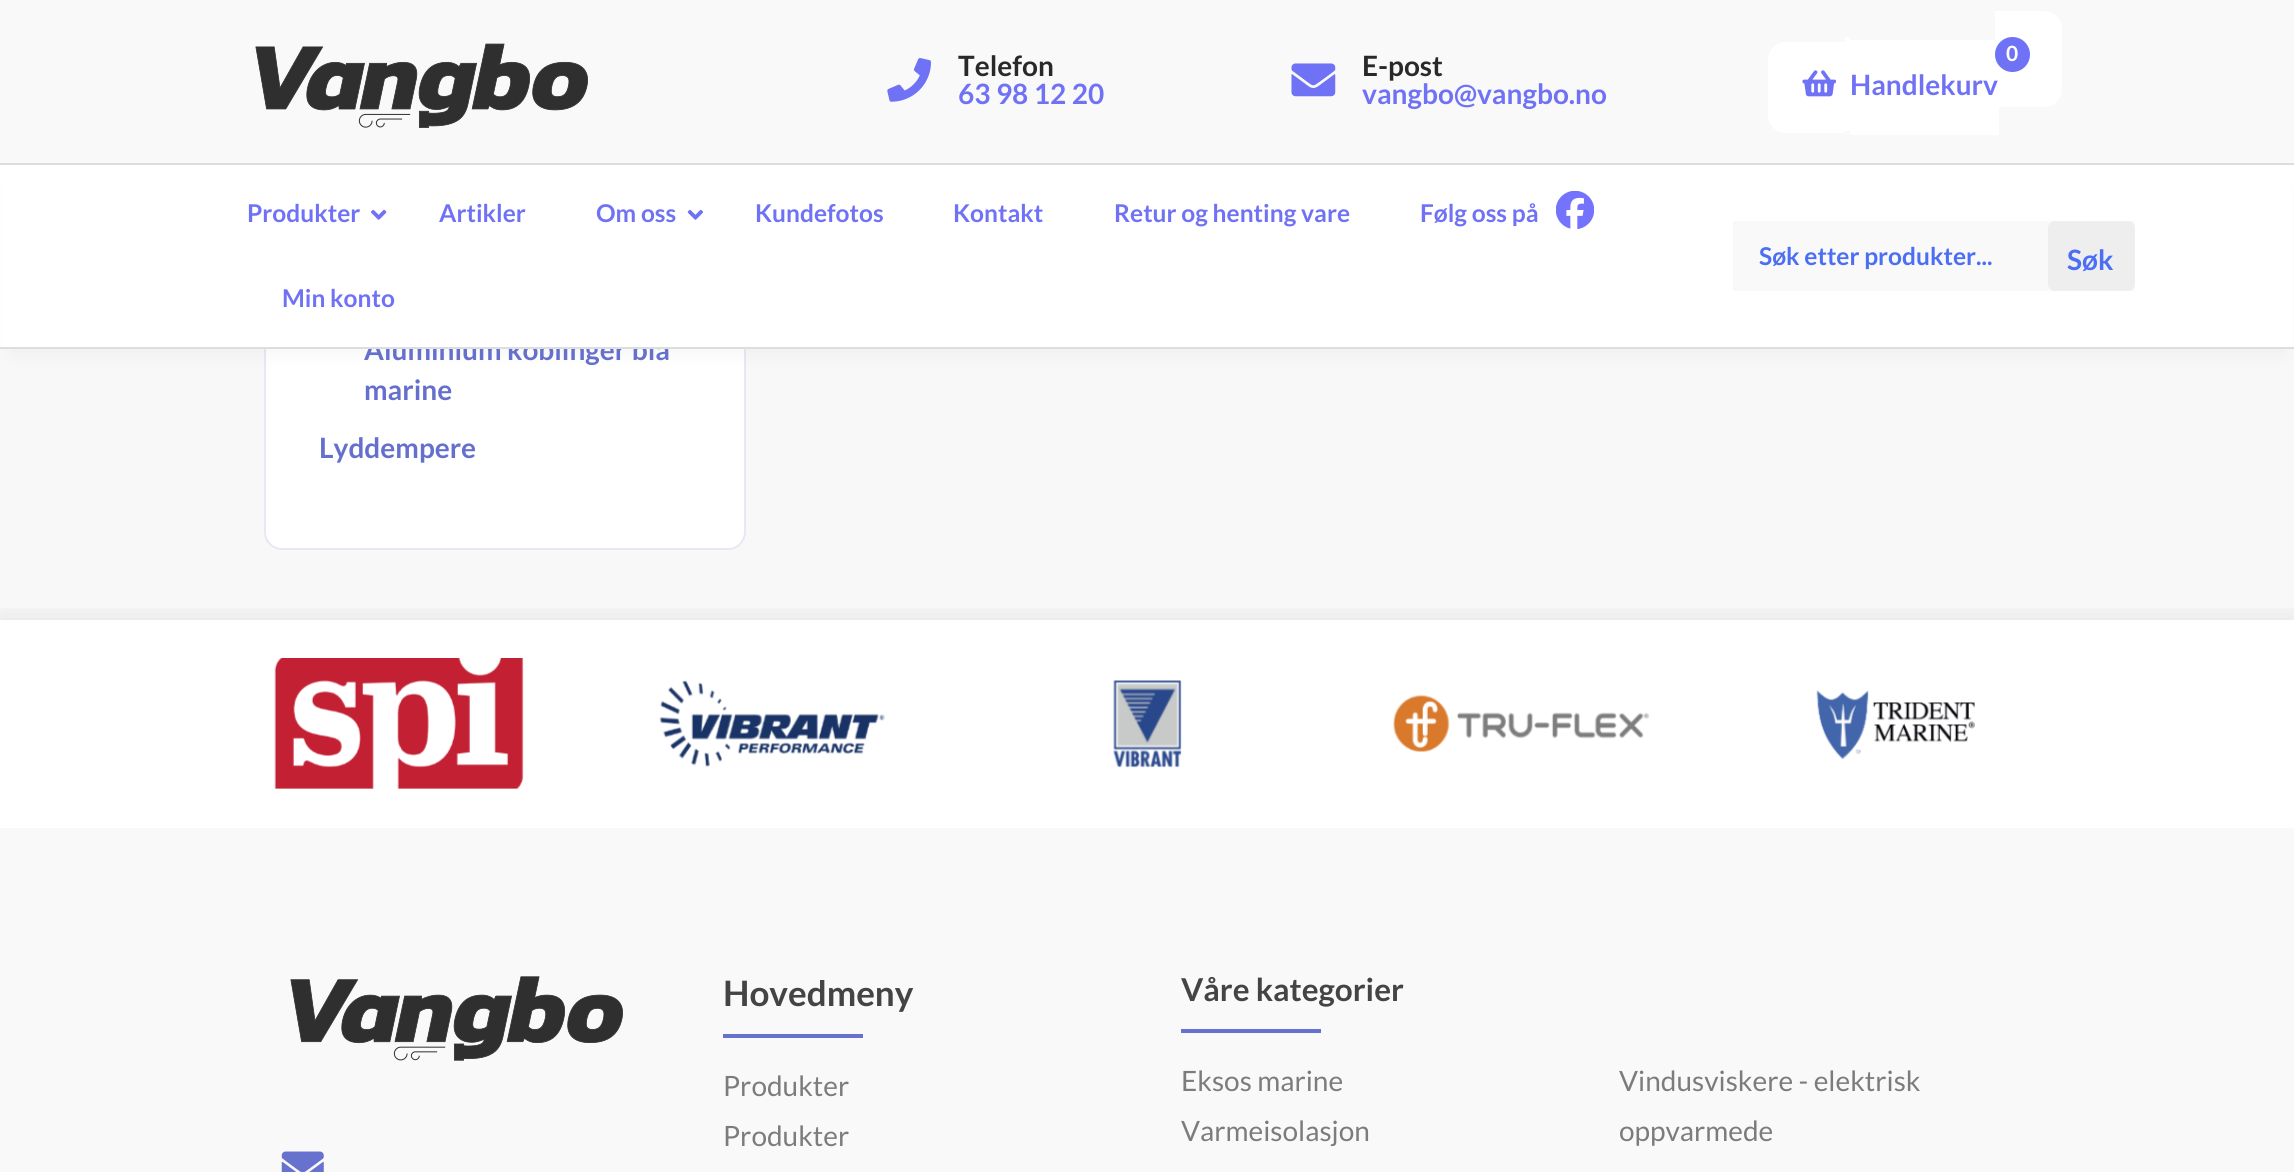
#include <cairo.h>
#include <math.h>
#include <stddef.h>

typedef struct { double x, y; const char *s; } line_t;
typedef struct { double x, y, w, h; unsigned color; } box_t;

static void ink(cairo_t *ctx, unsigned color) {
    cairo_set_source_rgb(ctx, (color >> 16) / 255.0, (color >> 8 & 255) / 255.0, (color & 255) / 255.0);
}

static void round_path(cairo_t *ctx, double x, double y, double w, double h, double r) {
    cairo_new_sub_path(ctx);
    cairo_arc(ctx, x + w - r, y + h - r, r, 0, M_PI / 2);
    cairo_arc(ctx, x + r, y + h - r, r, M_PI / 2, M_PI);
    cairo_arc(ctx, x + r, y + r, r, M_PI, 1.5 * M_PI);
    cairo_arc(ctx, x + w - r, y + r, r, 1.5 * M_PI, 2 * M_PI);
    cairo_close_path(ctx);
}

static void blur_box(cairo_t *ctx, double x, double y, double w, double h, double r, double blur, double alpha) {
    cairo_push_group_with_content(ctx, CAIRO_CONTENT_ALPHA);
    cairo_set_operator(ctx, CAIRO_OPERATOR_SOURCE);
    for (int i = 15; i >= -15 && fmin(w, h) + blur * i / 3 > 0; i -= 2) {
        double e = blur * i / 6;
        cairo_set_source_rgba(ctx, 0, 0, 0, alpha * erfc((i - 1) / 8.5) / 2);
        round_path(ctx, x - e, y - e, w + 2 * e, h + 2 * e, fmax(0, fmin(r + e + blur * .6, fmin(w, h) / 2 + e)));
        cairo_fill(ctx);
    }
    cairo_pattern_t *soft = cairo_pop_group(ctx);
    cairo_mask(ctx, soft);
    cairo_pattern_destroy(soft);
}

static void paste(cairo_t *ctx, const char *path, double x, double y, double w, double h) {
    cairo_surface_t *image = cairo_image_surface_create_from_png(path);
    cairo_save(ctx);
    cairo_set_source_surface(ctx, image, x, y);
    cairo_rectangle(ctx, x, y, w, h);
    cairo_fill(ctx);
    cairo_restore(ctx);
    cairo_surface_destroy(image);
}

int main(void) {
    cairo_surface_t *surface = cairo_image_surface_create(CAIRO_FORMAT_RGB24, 2294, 1172);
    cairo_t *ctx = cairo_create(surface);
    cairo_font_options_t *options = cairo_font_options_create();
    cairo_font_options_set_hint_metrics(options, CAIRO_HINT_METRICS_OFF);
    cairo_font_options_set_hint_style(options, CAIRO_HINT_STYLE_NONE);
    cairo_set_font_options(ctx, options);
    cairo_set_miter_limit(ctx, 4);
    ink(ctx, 0xFFFFFF);
    cairo_paint(ctx);
    ink(ctx, 0xF8F8F8);
    cairo_rectangle(ctx, 0, 349, 2294, 271);
    cairo_fill(ctx);
    ink(ctx, 0xFFFFFF);
    round_path(ctx, 265, -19, 480, 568, 17);
    cairo_fill_preserve(ctx);
    ink(ctx, 0xE8E8F4);
    cairo_stroke(ctx);
    ink(ctx, 0xF9F9F9);
    cairo_rectangle(ctx, 0, 0, 2294, 163);
    cairo_fill(ctx);
    paste(ctx, "media/1.png", 255, 43, 333, 85);
    paste(ctx, "media/2.png", 887, 58, 44, 44);
    cairo_select_font_face(ctx, "Lato", CAIRO_FONT_SLANT_NORMAL, CAIRO_FONT_WEIGHT_BOLD);
    cairo_set_font_size(ctx, 28);
    ink(ctx, 0x292929);
    cairo_move_to(ctx, 958, 76);
    cairo_show_text(ctx, "Telefon");
    ink(ctx, 0x7072F5);
    cairo_move_to(ctx, 958, 104);
    cairo_show_text(ctx, "63 98 12 20");
    paste(ctx, "media/3.png", 1291, 63, 45, 34);
    ink(ctx, 0x292929);
    cairo_move_to(ctx, 1362, 76);
    cairo_show_text(ctx, "E-post");
    ink(ctx, 0x7072F5);
    cairo_move_to(ctx, 1362, 104);
    cairo_show_text(ctx, "vangbo@vangbo.no");
    ink(ctx, 0xFFFFFF);
    cairo_new_path(ctx);
    cairo_move_to(ctx, 1786, 42);
    cairo_line_to(ctx, 1845, 42);
    cairo_line_to(ctx, 1845, 133);
    cairo_line_to(ctx, 1786, 133);
    cairo_curve_to(ctx, 1776, 133, 1768, 125, 1768, 115);
    cairo_line_to(ctx, 1768, 60);
    cairo_curve_to(ctx, 1768, 50, 1776, 42, 1786, 42);
    cairo_close_path(ctx);
    cairo_fill(ctx);
    cairo_rectangle(ctx, 1845, 37, 5, 94);
    cairo_fill(ctx);
    cairo_rectangle(ctx, 1850, 40, 149, 95);
    cairo_fill(ctx);
    cairo_new_path(ctx);
    cairo_move_to(ctx, 1995, 11);
    cairo_line_to(ctx, 2044, 11);
    cairo_curve_to(ctx, 2054, 11, 2062, 19, 2062, 29);
    cairo_line_to(ctx, 2062, 89);
    cairo_curve_to(ctx, 2062, 99, 2054, 107, 2044, 107);
    cairo_line_to(ctx, 1995, 107);
    cairo_close_path(ctx);
    cairo_fill(ctx);
    ink(ctx, 0x7072F5);
    cairo_arc(ctx, 2012.5, 54.5, 17.5, 0, 2 * M_PI);
    cairo_fill(ctx);
    cairo_set_font_size(ctx, 21);
    ink(ctx, 0xFFFFFF);
    cairo_move_to(ctx, 2006, 61);
    cairo_show_text(ctx, "0");
    paste(ctx, "media/4.png", 1802, 70, 34, 27);
    cairo_set_font_size(ctx, 28);
    ink(ctx, 0x7072F5);
    cairo_move_to(ctx, 1850, 95);
    cairo_show_text(ctx, "Handlekurv");
    ink(ctx, 0x000000);
    blur_box(ctx, 11, 189, 2273, 165, 0, 11.5, 0.04);
    ink(ctx, 0x656FCD);
    cairo_move_to(ctx, 364, 360);
    cairo_show_text(ctx, "Aluminium koblinger blå");
    {
        static const box_t items[] = {
            {3, 165, 2289, 182, 0xFFFFFF},
            {0, 163, 2294, 2, 0xDDDDDD},
            {0, 347, 2294, 2, 0xDDDDDD},
        };
        for (size_t i = 0; i < sizeof items / sizeof *items; i++) {
            ink(ctx, items[i].color);
            cairo_rectangle(ctx, items[i].x, items[i].y, items[i].w, items[i].h);
            cairo_fill(ctx);
        }
    }
    cairo_set_font_size(ctx, 24.5);
    ink(ctx, 0x7072F5);
    cairo_move_to(ctx, 247, 222);
    cairo_show_text(ctx, "Produkter");
    paste(ctx, "media/5.png", 371, 209, 16, 11);
    cairo_move_to(ctx, 439, 222);
    cairo_show_text(ctx, "Artikler");
    cairo_move_to(ctx, 596, 222);
    cairo_show_text(ctx, "Om oss");
    paste(ctx, "media/6.png", 687, 209, 16, 11);
    {
        static const line_t items[] = {
            {755, 222, "Kundefotos"},
            {953, 222, "Kontakt"},
            {1114, 222, "Retur og henting vare"},
            {1420, 222, "Følg oss på"},
        };
        for (size_t i = 0; i < sizeof items / sizeof *items; i++) {
            cairo_move_to(ctx, items[i].x, items[i].y);
            cairo_show_text(ctx, items[i].s);
        }
    }
    paste(ctx, "media/7.png", 1556, 191, 38, 38);
    cairo_move_to(ctx, 282, 307);
    cairo_show_text(ctx, "Min konto");
    ink(ctx, 0xF9F9F9);
    cairo_rectangle(ctx, 1733, 221, 402, 70);
    cairo_fill(ctx);
    ink(ctx, 0x4C6EF5);
    cairo_move_to(ctx, 1759, 265);
    cairo_show_text(ctx, "Søk etter produkter...");
    ink(ctx, 0xEEEEEE);
    round_path(ctx, 2048, 221, 87, 70, 7);
    cairo_fill(ctx);
    cairo_set_font_size(ctx, 28);
    ink(ctx, 0x4C6EF5);
    cairo_move_to(ctx, 2067, 270);
    cairo_show_text(ctx, "Søk");
    ink(ctx, 0x656FCD);
    cairo_move_to(ctx, 364, 400);
    cairo_show_text(ctx, "marine");
    cairo_move_to(ctx, 319, 458);
    cairo_show_text(ctx, "Lyddempere");
    cairo_save(ctx);
    cairo_rectangle(ctx, 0, 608, 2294, 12);
    cairo_clip(ctx);
    ink(ctx, 0x000000);
    blur_box(ctx, 0, 620, 2294, 208, 0, 14, 0.1);
    cairo_restore(ctx);
    paste(ctx, "media/8.png", 274, 658, 250, 131);
    paste(ctx, "media/9.png", 659, 680, 226, 87);
    paste(ctx, "media/10.png", 1113, 680, 69, 88);
    paste(ctx, "media/11.png", 1393, 695, 257, 57);
    paste(ctx, "media/12.png", 1816, 690, 159, 70);
    ink(ctx, 0xF9F9F9);
    cairo_rectangle(ctx, 0, 828, 2294, 344);
    cairo_fill(ctx);
    paste(ctx, "media/13.png", 290, 976, 333, 85);
    paste(ctx, "media/14.png", 281, 1151, 43, 21);
    cairo_set_font_size(ctx, 35);
    ink(ctx, 0x444444);
    cairo_move_to(ctx, 723, 1006);
    cairo_show_text(ctx, "Hovedmeny");
    ink(ctx, 0x6772CE);
    cairo_rectangle(ctx, 723, 1034, 140, 4);
    cairo_fill(ctx);
    cairo_select_font_face(ctx, "Lato", CAIRO_FONT_SLANT_NORMAL, CAIRO_FONT_WEIGHT_NORMAL);
    cairo_set_font_size(ctx, 28);
    ink(ctx, 0x7C7C7C);
    cairo_move_to(ctx, 723, 1096);
    cairo_show_text(ctx, "Produkter");
    cairo_move_to(ctx, 723, 1146);
    cairo_show_text(ctx, "Produkter");
    cairo_select_font_face(ctx, "Lato", CAIRO_FONT_SLANT_NORMAL, CAIRO_FONT_WEIGHT_BOLD);
    cairo_set_font_size(ctx, 31.5);
    ink(ctx, 0x444444);
    cairo_move_to(ctx, 1181, 1001);
    cairo_show_text(ctx, "Våre kategorier");
    ink(ctx, 0x6772CE);
    cairo_rectangle(ctx, 1181, 1029, 140, 4);
    cairo_fill(ctx);
    cairo_select_font_face(ctx, "Lato", CAIRO_FONT_SLANT_NORMAL, CAIRO_FONT_WEIGHT_NORMAL);
    cairo_set_font_size(ctx, 28);
    ink(ctx, 0x7C7C7C);
    {
        static const line_t items[] = {
            {1181, 1091, "Eksos marine"},
            {1619, 1091, "Vindusviskere - elektrisk"},
            {1619, 1141, "oppvarmede"},
            {1181, 1141, "Varmeisolasjon"},
        };
        for (size_t i = 0; i < sizeof items / sizeof *items; i++) {
            cairo_move_to(ctx, items[i].x, items[i].y);
            cairo_show_text(ctx, items[i].s);
        }
    }
    cairo_surface_write_to_png(surface, "image.png");
    cairo_font_options_destroy(options);
    cairo_destroy(ctx);
    cairo_surface_destroy(surface);
    return 0;
}
